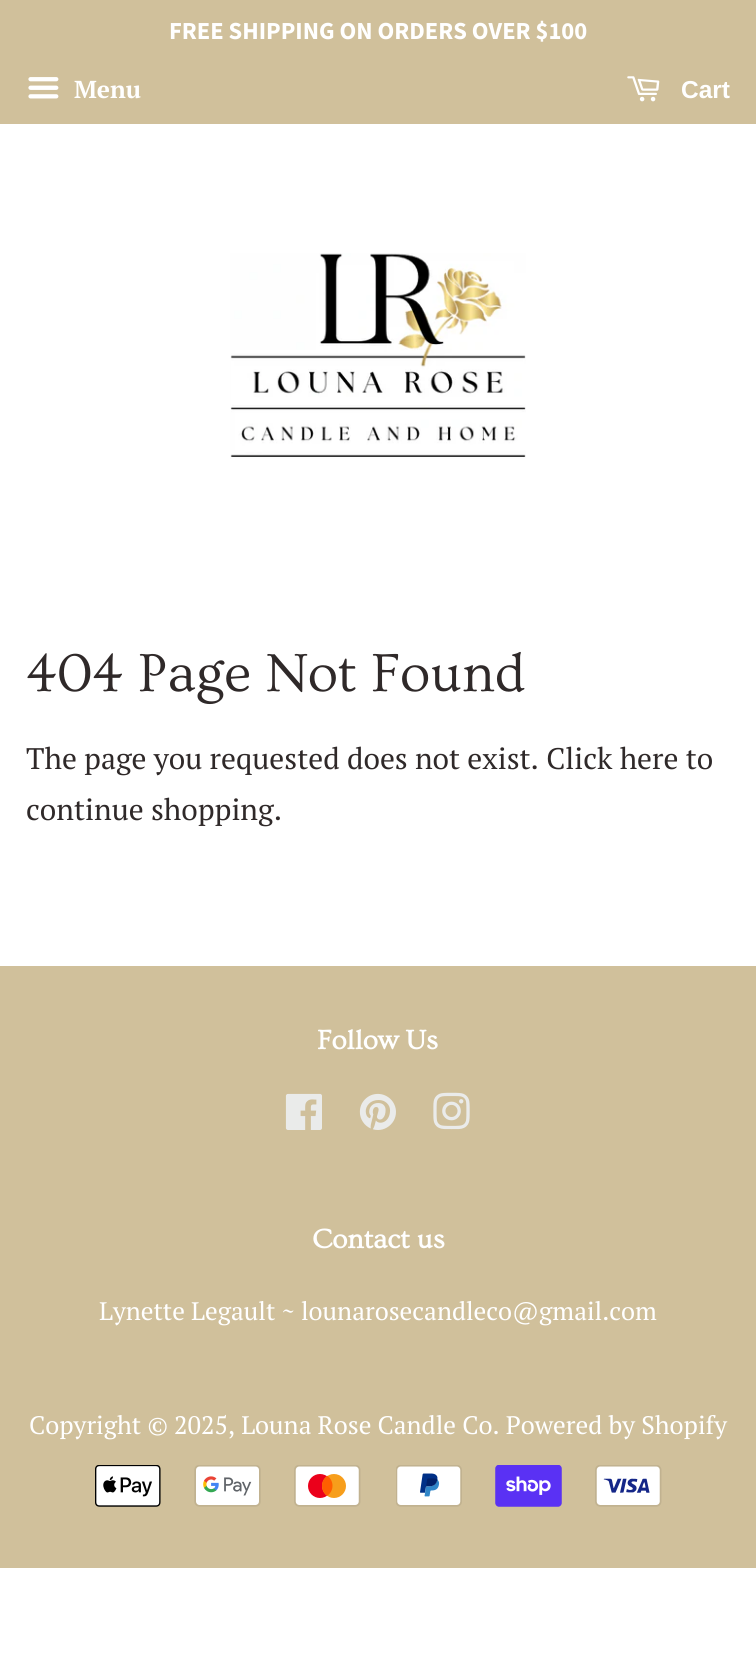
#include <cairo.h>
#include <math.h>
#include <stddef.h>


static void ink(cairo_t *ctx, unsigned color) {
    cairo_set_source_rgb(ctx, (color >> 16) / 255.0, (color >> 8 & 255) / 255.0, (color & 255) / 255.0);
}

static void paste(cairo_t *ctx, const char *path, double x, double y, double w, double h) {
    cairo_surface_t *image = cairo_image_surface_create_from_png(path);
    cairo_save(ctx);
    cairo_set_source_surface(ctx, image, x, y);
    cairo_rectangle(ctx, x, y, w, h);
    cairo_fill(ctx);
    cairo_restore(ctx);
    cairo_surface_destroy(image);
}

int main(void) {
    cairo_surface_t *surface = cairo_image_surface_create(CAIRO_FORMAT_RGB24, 756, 1680);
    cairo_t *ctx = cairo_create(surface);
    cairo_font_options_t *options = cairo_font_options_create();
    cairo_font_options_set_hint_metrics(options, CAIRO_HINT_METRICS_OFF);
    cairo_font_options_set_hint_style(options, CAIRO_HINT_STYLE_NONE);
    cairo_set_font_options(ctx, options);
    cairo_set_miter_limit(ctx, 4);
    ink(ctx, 0xFFFFFF);
    cairo_paint(ctx);
    ink(ctx, 0xD0C09B);
    cairo_rectangle(ctx, 0, 0, 756, 124);
    cairo_fill(ctx);
    cairo_select_font_face(ctx, "Source Sans Pro", CAIRO_FONT_SLANT_NORMAL, CAIRO_FONT_WEIGHT_BOLD);
    cairo_set_font_size(ctx, 24.5);
    ink(ctx, 0xFFFFFF);
    cairo_move_to(ctx, 169, 39);
    cairo_show_text(ctx, "FREE SHIPPING ON ORDERS OVER $100");
    paste(ctx, "media/1.png", 28, 77, 31, 22);
    cairo_select_font_face(ctx, "PT Serif", CAIRO_FONT_SLANT_NORMAL, CAIRO_FONT_WEIGHT_BOLD);
    cairo_move_to(ctx, 74, 98);
    cairo_show_text(ctx, "Menu");
    paste(ctx, "media/2.png", 627, 76, 33, 26);
    cairo_select_font_face(ctx, "Liberation Sans", CAIRO_FONT_SLANT_NORMAL, CAIRO_FONT_WEIGHT_BOLD);
    cairo_move_to(ctx, 681, 98);
    cairo_show_text(ctx, "Cart");
    paste(ctx, "media/3.png", 230, 253, 296, 206);
    cairo_select_font_face(ctx, "Ovo", CAIRO_FONT_SLANT_NORMAL, CAIRO_FONT_WEIGHT_NORMAL);
    cairo_set_font_size(ctx, 56);
    ink(ctx, 0x2F2929);
    cairo_move_to(ctx, 26, 691);
    cairo_show_text(ctx, "404 Page Not Found");
    cairo_select_font_face(ctx, "PT Serif", CAIRO_FONT_SLANT_NORMAL, CAIRO_FONT_WEIGHT_NORMAL);
    cairo_set_font_size(ctx, 29.75);
    cairo_move_to(ctx, 26, 769);
    cairo_show_text(ctx, "The page you requested does not exist. Click here to");
    cairo_move_to(ctx, 26, 820);
    cairo_show_text(ctx, "continue shopping.");
    ink(ctx, 0xD0C09B);
    cairo_rectangle(ctx, 0, 966, 756, 602);
    cairo_fill(ctx);
    cairo_select_font_face(ctx, "Ovo", CAIRO_FONT_SLANT_NORMAL, CAIRO_FONT_WEIGHT_BOLD);
    cairo_set_font_size(ctx, 28);
    ink(ctx, 0xFFFFFF);
    cairo_move_to(ctx, 317, 1049);
    cairo_show_text(ctx, "Follow Us");
    paste(ctx, "media/4.png", 285, 1093, 37, 37);
    paste(ctx, "media/5.png", 359, 1093, 37, 37);
    paste(ctx, "media/6.png", 433, 1092, 37, 38);
    cairo_move_to(ctx, 312, 1248);
    cairo_show_text(ctx, "Contact us");
    cairo_select_font_face(ctx, "PT Serif", CAIRO_FONT_SLANT_NORMAL, CAIRO_FONT_WEIGHT_NORMAL);
    cairo_set_font_size(ctx, 25.3);
    cairo_move_to(ctx, 99, 1320);
    cairo_show_text(ctx, "Lynette Legault ~ lounarosecandleco@gmail.com");
    cairo_move_to(ctx, 29, 1434);
    cairo_show_text(ctx, "Copyright © 2025, Louna Rose Candle Co. Powered by Shopify");
    paste(ctx, "media/7.png", 95, 1465, 66, 42);
    paste(ctx, "media/8.png", 194, 1465, 67, 42);
    paste(ctx, "media/9.png", 294, 1465, 67, 42);
    paste(ctx, "media/10.png", 396, 1465, 66, 42);
    paste(ctx, "media/11.png", 495, 1465, 67, 42);
    paste(ctx, "media/12.png", 595, 1465, 67, 42);
    cairo_surface_write_to_png(surface, "image.png");
    cairo_font_options_destroy(options);
    cairo_destroy(ctx);
    cairo_surface_destroy(surface);
    return 0;
}
